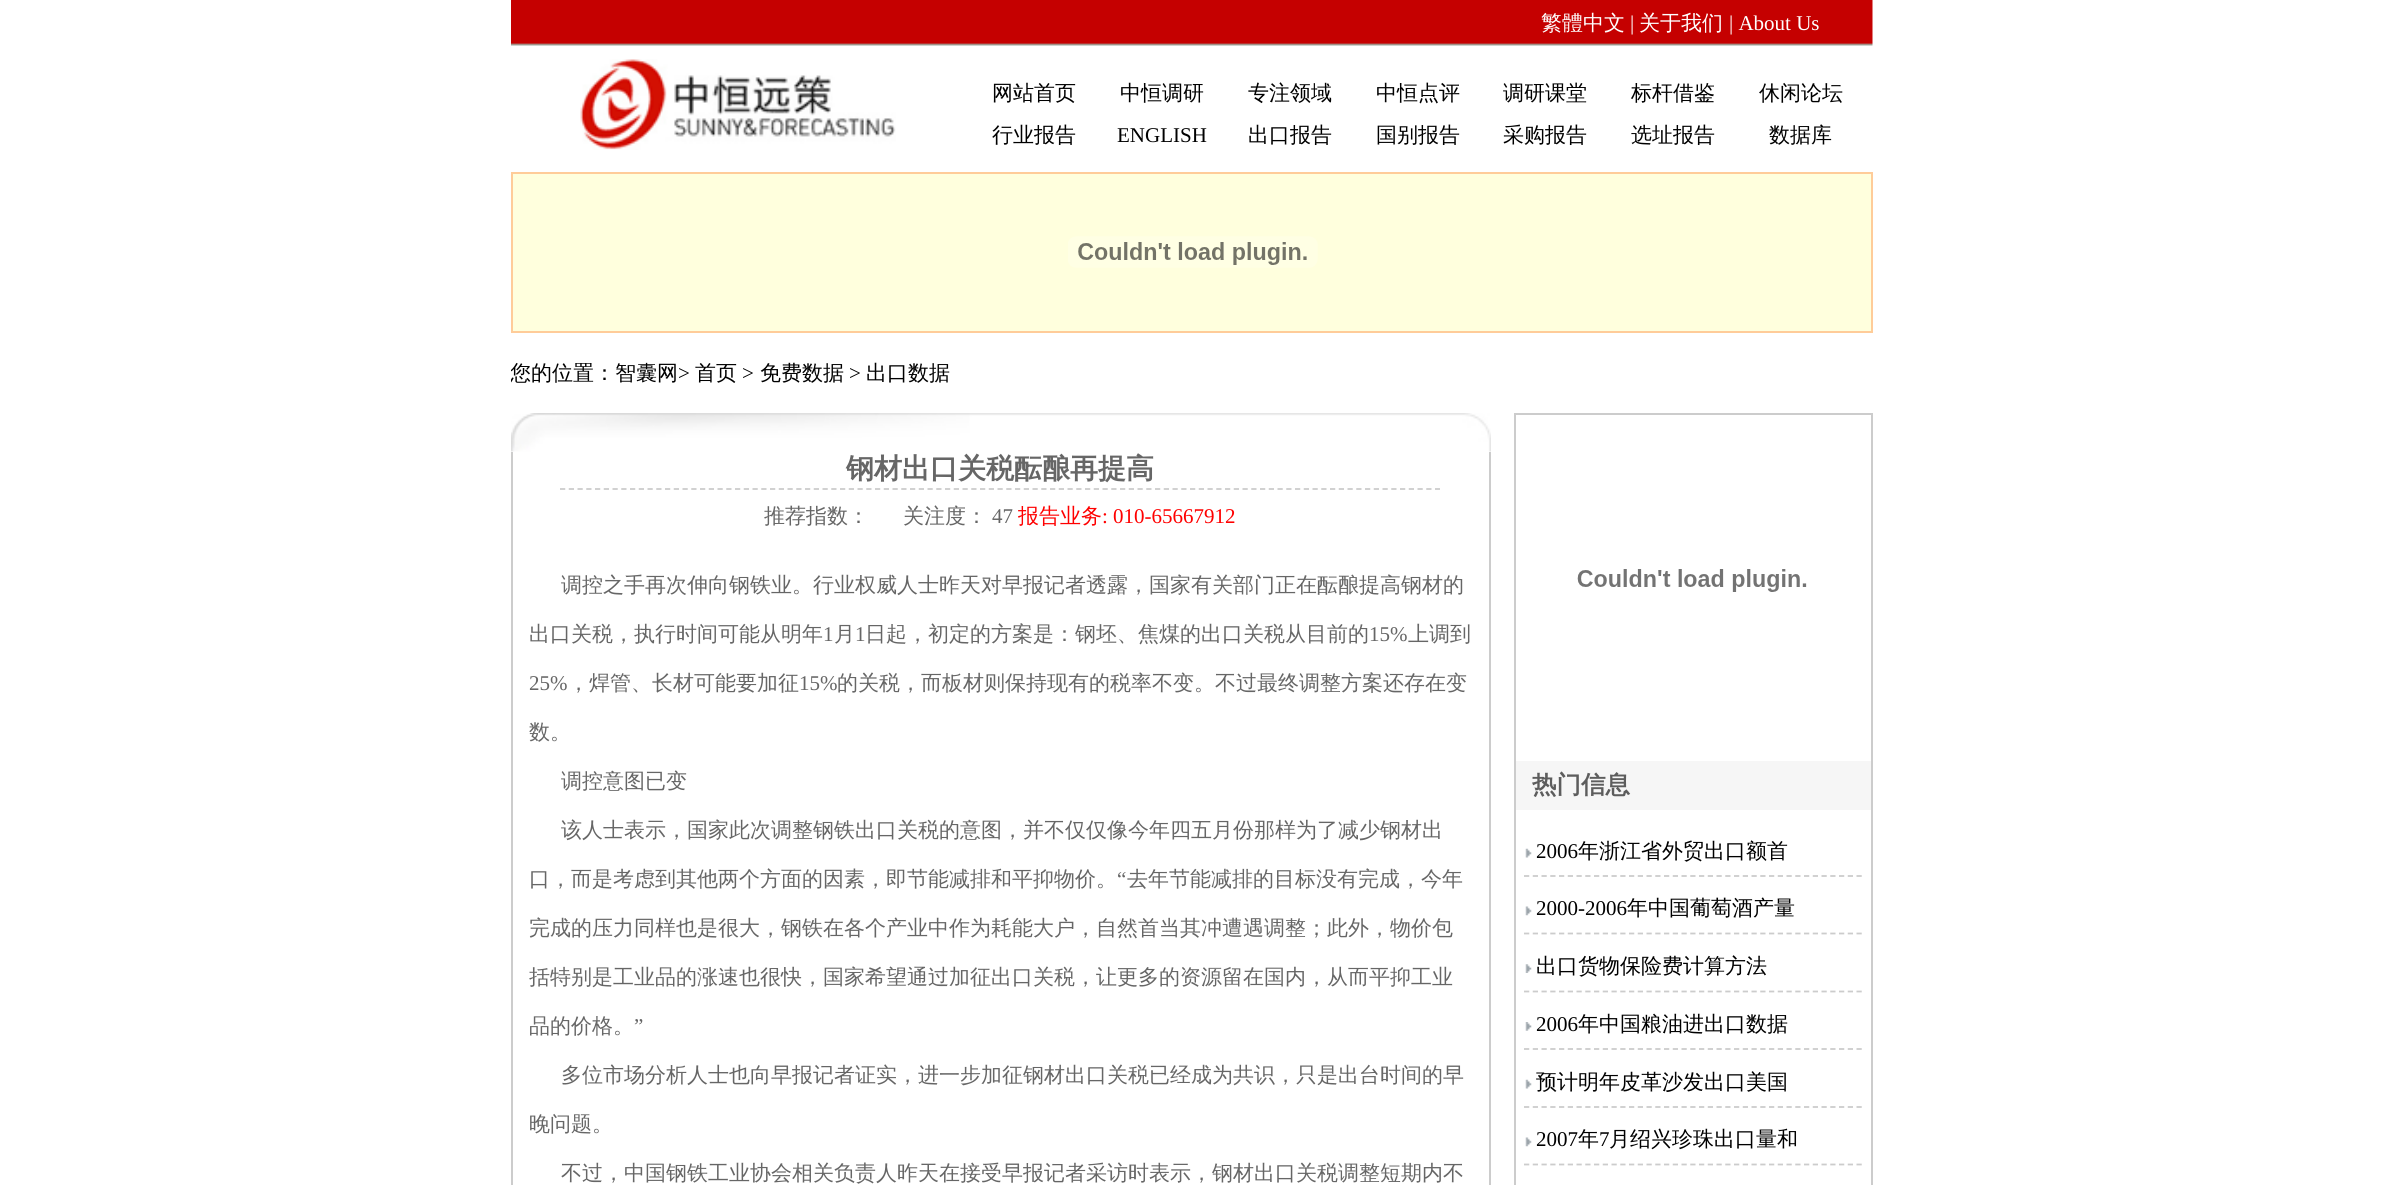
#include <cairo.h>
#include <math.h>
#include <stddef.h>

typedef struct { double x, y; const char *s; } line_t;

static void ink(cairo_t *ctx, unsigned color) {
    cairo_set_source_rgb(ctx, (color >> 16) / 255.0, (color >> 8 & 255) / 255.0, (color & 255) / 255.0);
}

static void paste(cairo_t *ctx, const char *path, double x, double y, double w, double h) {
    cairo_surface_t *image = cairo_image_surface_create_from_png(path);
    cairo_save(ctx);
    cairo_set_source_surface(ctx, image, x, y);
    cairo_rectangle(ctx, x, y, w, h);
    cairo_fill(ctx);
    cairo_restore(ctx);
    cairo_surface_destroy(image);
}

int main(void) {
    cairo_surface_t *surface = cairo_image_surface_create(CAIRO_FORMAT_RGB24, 2381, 1185);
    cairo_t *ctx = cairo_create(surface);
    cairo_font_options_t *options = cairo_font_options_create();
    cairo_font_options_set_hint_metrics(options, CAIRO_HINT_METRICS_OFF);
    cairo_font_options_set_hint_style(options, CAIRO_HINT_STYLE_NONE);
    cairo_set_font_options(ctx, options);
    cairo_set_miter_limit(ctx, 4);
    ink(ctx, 0xFFFFFF);
    cairo_paint(ctx);
    paste(ctx, "media/1.png", 511, 0, 1362, 46);
    cairo_select_font_face(ctx, "WenQuanYi Zen Hei Medium", CAIRO_FONT_SLANT_NORMAL, CAIRO_FONT_WEIGHT_NORMAL);
    cairo_set_font_size(ctx, 21);
    ink(ctx, 0xFFFFFF);
    cairo_move_to(ctx, 1541, 30);
    cairo_show_text(ctx, "繁體中文");
    cairo_select_font_face(ctx, "Liberation Serif", CAIRO_FONT_SLANT_NORMAL, CAIRO_FONT_WEIGHT_NORMAL);
    cairo_move_to(ctx, 1630, 30);
    cairo_show_text(ctx, "|");
    cairo_select_font_face(ctx, "WenQuanYi Zen Hei Medium", CAIRO_FONT_SLANT_NORMAL, CAIRO_FONT_WEIGHT_NORMAL);
    cairo_move_to(ctx, 1639, 30);
    cairo_show_text(ctx, "关于我们");
    cairo_select_font_face(ctx, "Liberation Serif", CAIRO_FONT_SLANT_NORMAL, CAIRO_FONT_WEIGHT_NORMAL);
    cairo_move_to(ctx, 1729, 30);
    cairo_show_text(ctx, "| About Us");
    paste(ctx, "media/2.png", 580, 59, 316, 91);
    cairo_select_font_face(ctx, "WenQuanYi Zen Hei Medium", CAIRO_FONT_SLANT_NORMAL, CAIRO_FONT_WEIGHT_NORMAL);
    ink(ctx, 0x000000);
    {
        static const line_t items[] = {
            {992, 100, "网站首页"},
            {1120, 100, "中恒调研"},
            {1248, 100, "专注领域"},
            {1376, 100, "中恒点评"},
            {1503, 100, "调研课堂"},
            {1631, 100, "标杆借鉴"},
            {1759, 100, "休闲论坛"},
            {992, 142, "行业报告"},
        };
        for (size_t i = 0; i < sizeof items / sizeof *items; i++) {
            cairo_move_to(ctx, items[i].x, items[i].y);
            cairo_show_text(ctx, items[i].s);
        }
    }
    cairo_select_font_face(ctx, "Liberation Serif", CAIRO_FONT_SLANT_NORMAL, CAIRO_FONT_WEIGHT_NORMAL);
    cairo_move_to(ctx, 1117, 142);
    cairo_show_text(ctx, "ENGLISH");
    cairo_select_font_face(ctx, "WenQuanYi Zen Hei Medium", CAIRO_FONT_SLANT_NORMAL, CAIRO_FONT_WEIGHT_NORMAL);
    {
        static const line_t items[] = {
            {1248, 142, "出口报告"},
            {1376, 142, "国别报告"},
            {1503, 142, "采购报告"},
            {1631, 142, "选址报告"},
            {1769, 142, "数据库"},
        };
        for (size_t i = 0; i < sizeof items / sizeof *items; i++) {
            cairo_move_to(ctx, items[i].x, items[i].y);
            cairo_show_text(ctx, items[i].s);
        }
    }
    ink(ctx, 0xFFFFDD);
    cairo_rectangle(ctx, 512, 173, 1360, 159);
    cairo_fill_preserve(ctx);
    ink(ctx, 0xFFCC99);
    cairo_stroke(ctx);
    paste(ctx, "media/3.png", 1068, 236, 250, 32);
    cairo_save(ctx);
    cairo_rectangle(ctx, 511, 341, 1362, 63);
    cairo_clip(ctx);
    ink(ctx, 0x000000);
    cairo_move_to(ctx, 510, 380);
    cairo_show_text(ctx, "您的位置：");
    cairo_restore(ctx);
    ink(ctx, 0x000000);
    cairo_move_to(ctx, 615, 380);
    cairo_show_text(ctx, "智囊网");
    cairo_select_font_face(ctx, "Liberation Serif", CAIRO_FONT_SLANT_NORMAL, CAIRO_FONT_WEIGHT_NORMAL);
    cairo_move_to(ctx, 678, 380);
    cairo_show_text(ctx, ">");
    cairo_select_font_face(ctx, "WenQuanYi Zen Hei Medium", CAIRO_FONT_SLANT_NORMAL, CAIRO_FONT_WEIGHT_NORMAL);
    cairo_move_to(ctx, 695, 380);
    cairo_show_text(ctx, "首页");
    cairo_select_font_face(ctx, "Liberation Serif", CAIRO_FONT_SLANT_NORMAL, CAIRO_FONT_WEIGHT_NORMAL);
    cairo_move_to(ctx, 742, 380);
    cairo_show_text(ctx, ">");
    cairo_select_font_face(ctx, "WenQuanYi Zen Hei Medium", CAIRO_FONT_SLANT_NORMAL, CAIRO_FONT_WEIGHT_NORMAL);
    cairo_move_to(ctx, 760, 380);
    cairo_show_text(ctx, "免费数据");
    cairo_select_font_face(ctx, "Liberation Serif", CAIRO_FONT_SLANT_NORMAL, CAIRO_FONT_WEIGHT_NORMAL);
    cairo_move_to(ctx, 849, 380);
    cairo_show_text(ctx, ">");
    cairo_select_font_face(ctx, "WenQuanYi Zen Hei Medium", CAIRO_FONT_SLANT_NORMAL, CAIRO_FONT_WEIGHT_NORMAL);
    cairo_move_to(ctx, 866, 380);
    cairo_show_text(ctx, "出口数据");
    paste(ctx, "media/4.png", 511, 413, 980, 39);
    ink(ctx, 0xCCCCCC);
    cairo_rectangle(ctx, 1489, 452, 2, 733);
    cairo_fill(ctx);
    cairo_rectangle(ctx, 511, 452, 2, 733);
    cairo_fill(ctx);
    cairo_new_path(ctx);
    cairo_move_to(ctx, 560, 489);
    cairo_line_to(ctx, 1440, 489);
    cairo_set_line_width(ctx, 1.8);
    cairo_set_dash(ctx, (double[]){5.25, 3.5}, 2, 0);
    cairo_stroke(ctx);
    cairo_select_font_face(ctx, "WenQuanYi Zen Hei", CAIRO_FONT_SLANT_NORMAL, CAIRO_FONT_WEIGHT_BOLD);
    cairo_set_font_size(ctx, 28);
    ink(ctx, 0x666666);
    cairo_move_to(ctx, 846, 478);
    cairo_show_text(ctx, "钢材出口关税酝酿再提高");
    cairo_select_font_face(ctx, "WenQuanYi Zen Hei Medium", CAIRO_FONT_SLANT_NORMAL, CAIRO_FONT_WEIGHT_NORMAL);
    cairo_set_font_size(ctx, 21);
    cairo_move_to(ctx, 764, 523);
    cairo_show_text(ctx, "推荐指数：");
    cairo_move_to(ctx, 903, 523);
    cairo_show_text(ctx, "关注度：");
    cairo_select_font_face(ctx, "Liberation Serif", CAIRO_FONT_SLANT_NORMAL, CAIRO_FONT_WEIGHT_NORMAL);
    cairo_move_to(ctx, 992, 523);
    cairo_show_text(ctx, "47");
    cairo_select_font_face(ctx, "WenQuanYi Zen Hei Medium", CAIRO_FONT_SLANT_NORMAL, CAIRO_FONT_WEIGHT_NORMAL);
    ink(ctx, 0xFF0000);
    cairo_move_to(ctx, 1018, 523);
    cairo_show_text(ctx, "报告业务");
    cairo_select_font_face(ctx, "Liberation Serif", CAIRO_FONT_SLANT_NORMAL, CAIRO_FONT_WEIGHT_NORMAL);
    cairo_move_to(ctx, 1102, 523);
    cairo_show_text(ctx, ": 010-65667912");
    cairo_select_font_face(ctx, "WenQuanYi Zen Hei Medium", CAIRO_FONT_SLANT_NORMAL, CAIRO_FONT_WEIGHT_NORMAL);
    ink(ctx, 0x666666);
    cairo_move_to(ctx, 561, 592);
    cairo_show_text(ctx, "调控之手再次伸向钢铁业。行业权威人士昨天对早报记者透露，国家有关部门正在酝酿提高钢材的");
    cairo_move_to(ctx, 529, 641);
    cairo_show_text(ctx, "出口关税，执行时间可能从明年");
    cairo_select_font_face(ctx, "Liberation Serif", CAIRO_FONT_SLANT_NORMAL, CAIRO_FONT_WEIGHT_NORMAL);
    cairo_move_to(ctx, 823, 641);
    cairo_show_text(ctx, "1");
    cairo_select_font_face(ctx, "WenQuanYi Zen Hei Medium", CAIRO_FONT_SLANT_NORMAL, CAIRO_FONT_WEIGHT_NORMAL);
    cairo_move_to(ctx, 834, 641);
    cairo_show_text(ctx, "月");
    cairo_select_font_face(ctx, "Liberation Serif", CAIRO_FONT_SLANT_NORMAL, CAIRO_FONT_WEIGHT_NORMAL);
    cairo_move_to(ctx, 855, 641);
    cairo_show_text(ctx, "1");
    cairo_select_font_face(ctx, "WenQuanYi Zen Hei Medium", CAIRO_FONT_SLANT_NORMAL, CAIRO_FONT_WEIGHT_NORMAL);
    cairo_move_to(ctx, 865, 641);
    cairo_show_text(ctx, "日起，初定的方案是：钢坯、焦煤的出口关税从目前的");
    cairo_select_font_face(ctx, "Liberation Serif", CAIRO_FONT_SLANT_NORMAL, CAIRO_FONT_WEIGHT_NORMAL);
    cairo_move_to(ctx, 1369, 641);
    cairo_show_text(ctx, "15%");
    cairo_select_font_face(ctx, "WenQuanYi Zen Hei Medium", CAIRO_FONT_SLANT_NORMAL, CAIRO_FONT_WEIGHT_NORMAL);
    cairo_move_to(ctx, 1408, 641);
    cairo_show_text(ctx, "上调到");
    cairo_select_font_face(ctx, "Liberation Serif", CAIRO_FONT_SLANT_NORMAL, CAIRO_FONT_WEIGHT_NORMAL);
    cairo_move_to(ctx, 529, 690);
    cairo_show_text(ctx, "25%");
    cairo_select_font_face(ctx, "WenQuanYi Zen Hei Medium", CAIRO_FONT_SLANT_NORMAL, CAIRO_FONT_WEIGHT_NORMAL);
    cairo_move_to(ctx, 568, 690);
    cairo_show_text(ctx, "，焊管、长材可能要加征");
    cairo_select_font_face(ctx, "Liberation Serif", CAIRO_FONT_SLANT_NORMAL, CAIRO_FONT_WEIGHT_NORMAL);
    cairo_move_to(ctx, 799, 690);
    cairo_show_text(ctx, "15%");
    cairo_select_font_face(ctx, "WenQuanYi Zen Hei Medium", CAIRO_FONT_SLANT_NORMAL, CAIRO_FONT_WEIGHT_NORMAL);
    {
        static const line_t items[] = {
            {837, 690, "的关税，而板材则保持现有的税率不变。不过最终调整方案还存在变"},
            {529, 739, "数。"},
            {561, 788, "调控意图已变"},
            {561, 837, "该人士表示，国家此次调整钢铁出口关税的意图，并不仅仅像今年四五月份那样为了减少钢材出"},
            {529, 886, "口，而是考虑到其他两个方面的因素，即节能减排和平抑物价。"},
        };
        for (size_t i = 0; i < sizeof items / sizeof *items; i++) {
            cairo_move_to(ctx, items[i].x, items[i].y);
            cairo_show_text(ctx, items[i].s);
        }
    }
    cairo_select_font_face(ctx, "Liberation Serif", CAIRO_FONT_SLANT_NORMAL, CAIRO_FONT_WEIGHT_NORMAL);
    cairo_move_to(ctx, 1117, 886);
    cairo_show_text(ctx, "“");
    cairo_select_font_face(ctx, "WenQuanYi Zen Hei Medium", CAIRO_FONT_SLANT_NORMAL, CAIRO_FONT_WEIGHT_NORMAL);
    {
        static const line_t items[] = {
            {1127, 886, "去年节能减排的目标没有完成，今年"},
            {529, 935, "完成的压力同样也是很大，钢铁在各个产业中作为耗能大户，自然首当其冲遭遇调整；此外，物价包"},
            {529, 984, "括特别是工业品的涨速也很快，国家希望通过加征出口关税，让更多的资源留在国内，从而平抑工业"},
            {529, 1033, "品的价格。"},
        };
        for (size_t i = 0; i < sizeof items / sizeof *items; i++) {
            cairo_move_to(ctx, items[i].x, items[i].y);
            cairo_show_text(ctx, items[i].s);
        }
    }
    cairo_select_font_face(ctx, "Liberation Serif", CAIRO_FONT_SLANT_NORMAL, CAIRO_FONT_WEIGHT_NORMAL);
    cairo_move_to(ctx, 634, 1033);
    cairo_show_text(ctx, "”");
    cairo_select_font_face(ctx, "WenQuanYi Zen Hei Medium", CAIRO_FONT_SLANT_NORMAL, CAIRO_FONT_WEIGHT_NORMAL);
    {
        static const line_t items[] = {
            {561, 1082, "多位市场分析人士也向早报记者证实，进一步加征钢材出口关税已经成为共识，只是出台时间的早"},
            {529, 1131, "晚问题。"},
            {561, 1180, "不过，中国钢铁工业协会相关负责人昨天在接受早报记者采访时表示，钢材出口关税调整短期内不"},
        };
        for (size_t i = 0; i < sizeof items / sizeof *items; i++) {
            cairo_move_to(ctx, items[i].x, items[i].y);
            cairo_show_text(ctx, items[i].s);
        }
    }
    cairo_rectangle(ctx, 1515, 414, 357, 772);
    ink(ctx, 0xCCCCCC);
    cairo_set_line_width(ctx, 2);
    cairo_set_dash(ctx, NULL, 0, 0);
    cairo_stroke(ctx);
    paste(ctx, "media/5.png", 1577, 569, 230, 23);
    ink(ctx, 0xF6F6F6);
    cairo_rectangle(ctx, 1516, 761, 355, 49);
    cairo_fill(ctx);
    cairo_select_font_face(ctx, "WenQuanYi Zen Hei", CAIRO_FONT_SLANT_NORMAL, CAIRO_FONT_WEIGHT_BOLD);
    cairo_set_font_size(ctx, 24.5);
    ink(ctx, 0x5D5D5D);
    cairo_move_to(ctx, 1532, 793);
    cairo_show_text(ctx, "热门信息");
    cairo_new_path(ctx);
    cairo_move_to(ctx, 1524, 876);
    cairo_line_to(ctx, 1862, 876);
    ink(ctx, 0xCCCCCC);
    cairo_set_line_width(ctx, 1.8);
    cairo_set_dash(ctx, (double[]){5.25, 3.5}, 2, 0);
    cairo_stroke(ctx);
    paste(ctx, "media/6.png", 1525, 848, 7, 10);
    cairo_select_font_face(ctx, "Liberation Serif", CAIRO_FONT_SLANT_NORMAL, CAIRO_FONT_WEIGHT_NORMAL);
    cairo_set_font_size(ctx, 21);
    ink(ctx, 0x000000);
    cairo_move_to(ctx, 1536, 858);
    cairo_show_text(ctx, "2006");
    cairo_select_font_face(ctx, "WenQuanYi Zen Hei Medium", CAIRO_FONT_SLANT_NORMAL, CAIRO_FONT_WEIGHT_NORMAL);
    cairo_move_to(ctx, 1578, 858);
    cairo_show_text(ctx, "年浙江省外贸出口额首");
    cairo_new_path(ctx);
    cairo_move_to(ctx, 1524, 933.5);
    cairo_line_to(ctx, 1862, 933.5);
    ink(ctx, 0xCCCCCC);
    cairo_stroke(ctx);
    paste(ctx, "media/7.png", 1525, 906, 7, 10);
    cairo_select_font_face(ctx, "Liberation Serif", CAIRO_FONT_SLANT_NORMAL, CAIRO_FONT_WEIGHT_NORMAL);
    ink(ctx, 0x000000);
    cairo_move_to(ctx, 1536, 915);
    cairo_show_text(ctx, "2000-2006");
    cairo_select_font_face(ctx, "WenQuanYi Zen Hei Medium", CAIRO_FONT_SLANT_NORMAL, CAIRO_FONT_WEIGHT_NORMAL);
    cairo_move_to(ctx, 1627, 915);
    cairo_show_text(ctx, "年中国葡萄酒产量");
    cairo_new_path(ctx);
    cairo_move_to(ctx, 1524, 991.5);
    cairo_line_to(ctx, 1862, 991.5);
    ink(ctx, 0xCCCCCC);
    cairo_stroke(ctx);
    paste(ctx, "media/8.png", 1525, 964, 7, 9);
    ink(ctx, 0x000000);
    cairo_move_to(ctx, 1536, 973);
    cairo_show_text(ctx, "出口货物保险费计算方法");
    cairo_new_path(ctx);
    cairo_move_to(ctx, 1524, 1049);
    cairo_line_to(ctx, 1862, 1049);
    ink(ctx, 0xCCCCCC);
    cairo_stroke(ctx);
    paste(ctx, "media/9.png", 1525, 1022, 7, 9);
    cairo_select_font_face(ctx, "Liberation Serif", CAIRO_FONT_SLANT_NORMAL, CAIRO_FONT_WEIGHT_NORMAL);
    ink(ctx, 0x000000);
    cairo_move_to(ctx, 1536, 1031);
    cairo_show_text(ctx, "2006");
    cairo_select_font_face(ctx, "WenQuanYi Zen Hei Medium", CAIRO_FONT_SLANT_NORMAL, CAIRO_FONT_WEIGHT_NORMAL);
    cairo_move_to(ctx, 1578, 1031);
    cairo_show_text(ctx, "年中国粮油进出口数据");
    cairo_new_path(ctx);
    cairo_move_to(ctx, 1524, 1107);
    cairo_line_to(ctx, 1862, 1107);
    ink(ctx, 0xCCCCCC);
    cairo_stroke(ctx);
    paste(ctx, "media/6.png", 1525, 1079, 7, 10);
    ink(ctx, 0x000000);
    cairo_move_to(ctx, 1536, 1089);
    cairo_show_text(ctx, "预计明年皮革沙发出口美国");
    cairo_new_path(ctx);
    cairo_move_to(ctx, 1524, 1164.5);
    cairo_line_to(ctx, 1862, 1164.5);
    ink(ctx, 0xCCCCCC);
    cairo_stroke(ctx);
    paste(ctx, "media/7.png", 1525, 1137, 7, 10);
    cairo_select_font_face(ctx, "Liberation Serif", CAIRO_FONT_SLANT_NORMAL, CAIRO_FONT_WEIGHT_NORMAL);
    ink(ctx, 0x000000);
    cairo_move_to(ctx, 1536, 1146);
    cairo_show_text(ctx, "2007");
    cairo_select_font_face(ctx, "WenQuanYi Zen Hei Medium", CAIRO_FONT_SLANT_NORMAL, CAIRO_FONT_WEIGHT_NORMAL);
    cairo_move_to(ctx, 1578, 1146);
    cairo_show_text(ctx, "年");
    cairo_select_font_face(ctx, "Liberation Serif", CAIRO_FONT_SLANT_NORMAL, CAIRO_FONT_WEIGHT_NORMAL);
    cairo_move_to(ctx, 1599, 1146);
    cairo_show_text(ctx, "7");
    cairo_select_font_face(ctx, "WenQuanYi Zen Hei Medium", CAIRO_FONT_SLANT_NORMAL, CAIRO_FONT_WEIGHT_NORMAL);
    cairo_move_to(ctx, 1609, 1146);
    cairo_show_text(ctx, "月绍兴珍珠出口量和");
    cairo_surface_write_to_png(surface, "image.png");
    cairo_font_options_destroy(options);
    cairo_destroy(ctx);
    cairo_surface_destroy(surface);
    return 0;
}
